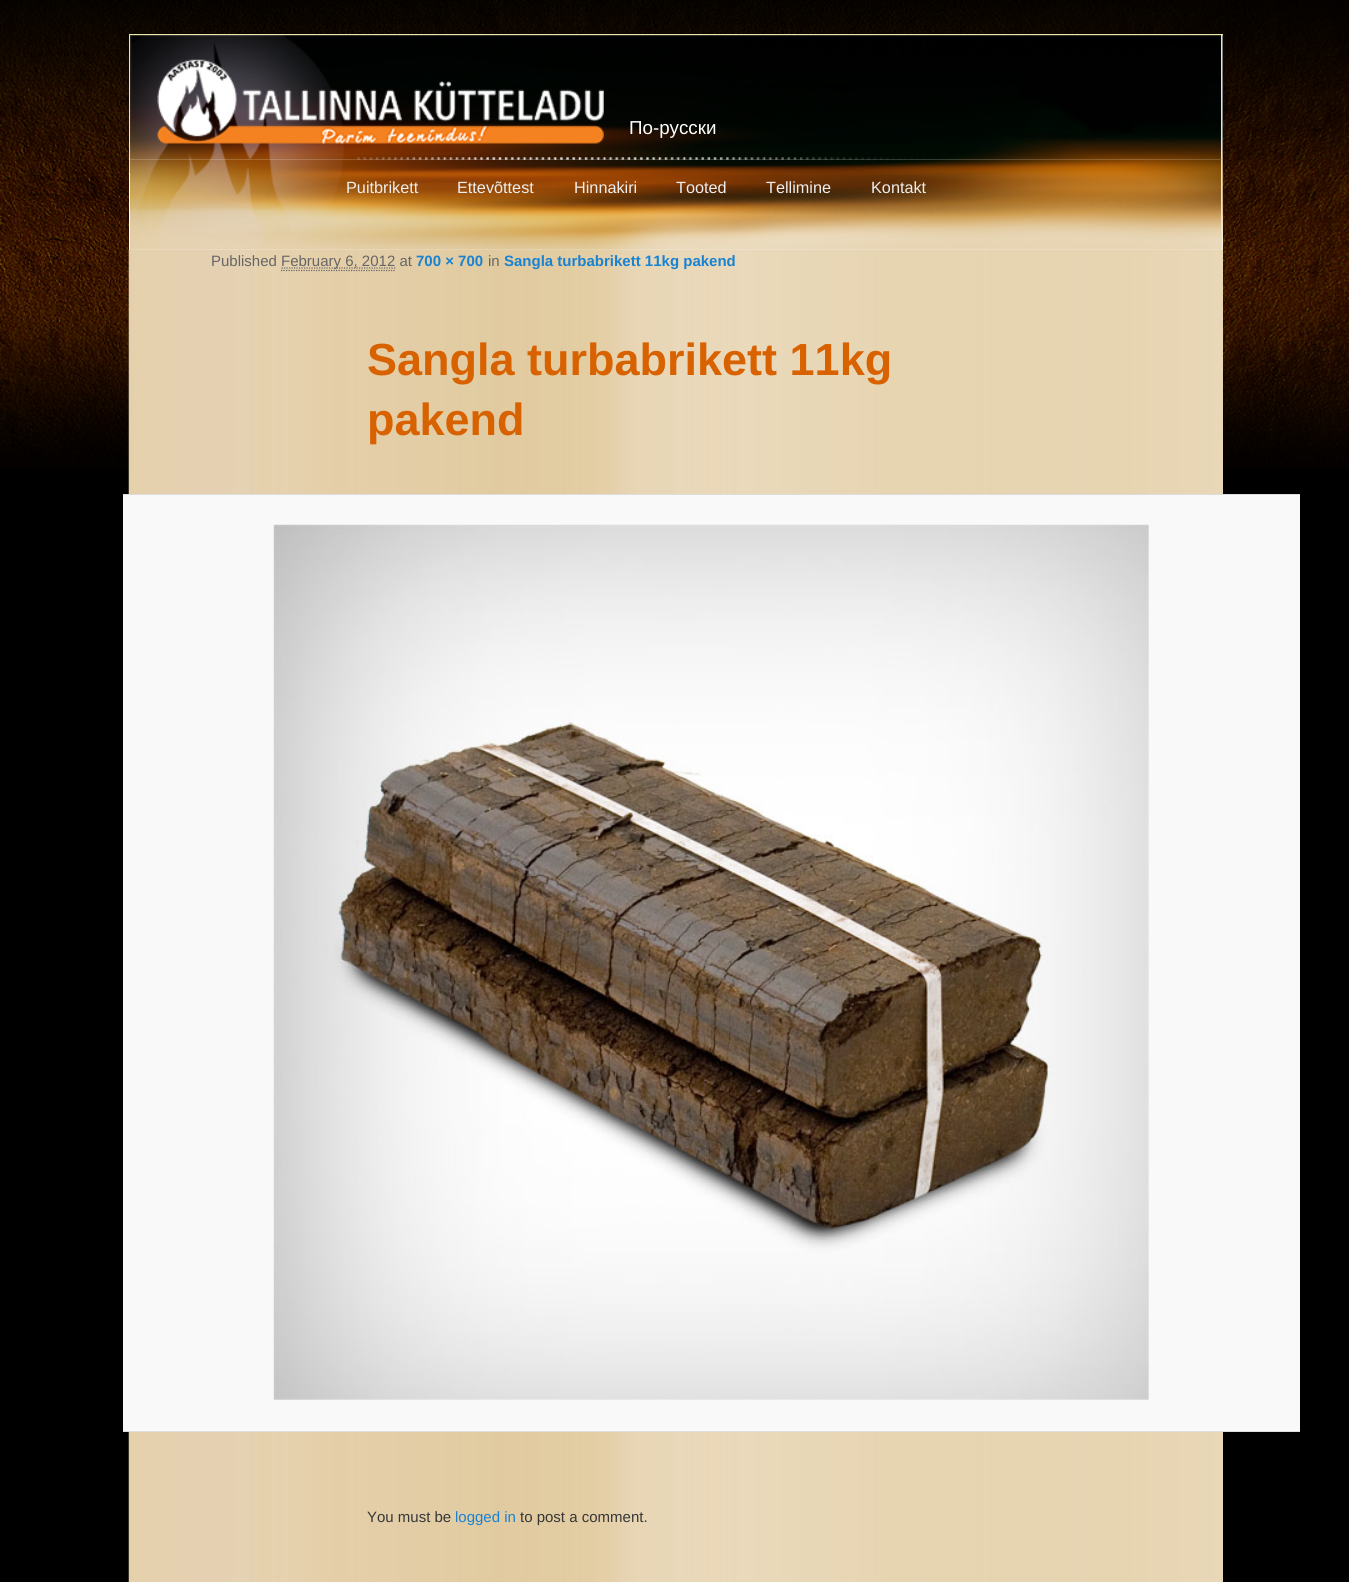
#include <cairo.h>
#include <math.h>
#include <stddef.h>

typedef struct { double x, y; const char *s; } line_t;
typedef struct { double x, y, w, h; unsigned color; } box_t;

static void ink(cairo_t *ctx, unsigned color) {
    cairo_set_source_rgb(ctx, (color >> 16) / 255.0, (color >> 8 & 255) / 255.0, (color & 255) / 255.0);
}

static void paste(cairo_t *ctx, const char *path, double x, double y, double w, double h) {
    cairo_surface_t *image = cairo_image_surface_create_from_png(path);
    cairo_save(ctx);
    cairo_set_source_surface(ctx, image, x, y);
    cairo_rectangle(ctx, x, y, w, h);
    cairo_fill(ctx);
    cairo_restore(ctx);
    cairo_surface_destroy(image);
}

int main(void) {
    cairo_surface_t *surface = cairo_image_surface_create(CAIRO_FORMAT_RGB24, 1349, 1582);
    cairo_t *ctx = cairo_create(surface);
    cairo_font_options_t *options = cairo_font_options_create();
    cairo_font_options_set_hint_metrics(options, CAIRO_HINT_METRICS_OFF);
    cairo_font_options_set_hint_style(options, CAIRO_HINT_STYLE_NONE);
    cairo_set_font_options(ctx, options);
    cairo_set_miter_limit(ctx, 4);
    ink(ctx, 0x000000);
    cairo_paint(ctx);
    paste(ctx, "media/1.png", 0, 0, 1349, 469);
    ink(ctx, 0xFFFFFF);
    cairo_rectangle(ctx, 129, 35, 1094, 215);
    cairo_fill(ctx);
    paste(ctx, "media/2.png", 130, 35, 1093, 125);
    {
        static const box_t items[] = {
            {129, 34, 1094, 1, 0xE9E8AD},
            {1221, 34, 1, 126, 0xE9E8AD},
            {129, 34, 1, 139, 0xE9E8AD},
        };
        for (size_t i = 0; i < sizeof items / sizeof *items; i++) {
            ink(ctx, items[i].color);
            cairo_rectangle(ctx, items[i].x, items[i].y, items[i].w, items[i].h);
            cairo_fill(ctx);
        }
    }
    paste(ctx, "media/3.png", 157, 59, 447, 85);
    cairo_select_font_face(ctx, "Liberation Sans", CAIRO_FONT_SLANT_NORMAL, CAIRO_FONT_WEIGHT_NORMAL);
    cairo_set_font_size(ctx, 18.75);
    ink(ctx, 0xFFFFFF);
    cairo_move_to(ctx, 629, 134);
    cairo_show_text(ctx, "По-русски");
    ink(ctx, 0xE6D3AF);
    cairo_rectangle(ctx, 1222, 250, 1, 1332);
    cairo_fill(ctx);
    paste(ctx, "media/5.png", 128, 249, 1095, 1333);
    paste(ctx, "media/4.png", 130, 159, 1093, 91);
    ink(ctx, 0xE9E8AD);
    cairo_rectangle(ctx, 1221, 160, 1, 90);
    cairo_fill(ctx);
    cairo_set_font_size(ctx, 16.25);
    ink(ctx, 0xEEEEEE);
    {
        static const line_t items[] = {
            {346, 193, "Puitbrikett"},
            {457, 193, "Ettevõttest"},
            {574, 193, "Hinnakiri"},
            {676, 193, "Tooted"},
            {766, 193, "Tellimine"},
            {871, 193, "Kontakt"},
        };
        for (size_t i = 0; i < sizeof items / sizeof *items; i++) {
            cairo_move_to(ctx, items[i].x, items[i].y);
            cairo_show_text(ctx, items[i].s);
        }
    }
    cairo_set_font_size(ctx, 15);
    ink(ctx, 0x666666);
    cairo_move_to(ctx, 211, 266);
    cairo_show_text(ctx, "Published");
    cairo_new_path(ctx);
    cairo_move_to(ctx, 281, 270.5);
    cairo_line_to(ctx, 395, 270.5);
    cairo_set_line_width(ctx, 1.2);
    cairo_set_dash(ctx, (double[]){1.25, 1.25}, 2, 0);
    cairo_stroke(ctx);
    cairo_new_path(ctx);
    cairo_move_to(ctx, 281.5, 268);
    cairo_line_to(ctx, 395.5, 268);
    cairo_stroke(ctx);
    cairo_move_to(ctx, 281, 266);
    cairo_show_text(ctx, "February 6, 2012 at");
    cairo_select_font_face(ctx, "Liberation Sans", CAIRO_FONT_SLANT_NORMAL, CAIRO_FONT_WEIGHT_BOLD);
    ink(ctx, 0x1982D1);
    cairo_move_to(ctx, 416, 266);
    cairo_show_text(ctx, "700 × 700");
    cairo_select_font_face(ctx, "Liberation Sans", CAIRO_FONT_SLANT_NORMAL, CAIRO_FONT_WEIGHT_NORMAL);
    ink(ctx, 0x666666);
    cairo_move_to(ctx, 488, 266);
    cairo_show_text(ctx, "in");
    cairo_select_font_face(ctx, "Liberation Sans", CAIRO_FONT_SLANT_NORMAL, CAIRO_FONT_WEIGHT_BOLD);
    ink(ctx, 0x1982D1);
    cairo_move_to(ctx, 504, 266);
    cairo_show_text(ctx, "Sangla turbabrikett 11kg pakend");
    cairo_set_font_size(ctx, 45);
    ink(ctx, 0xD86100);
    cairo_move_to(ctx, 367, 375);
    cairo_show_text(ctx, "Sangla turbabrikett 11kg");
    cairo_move_to(ctx, 367, 435);
    cairo_show_text(ctx, "pakend");
    {
        static const box_t items[] = {
            {123, 495, 1177, 936, 0xF9F9F9},
            {123, 494, 1177, 1, 0xDDDDDD},
            {123, 1431, 1177, 1, 0xDDDDDD},
        };
        for (size_t i = 0; i < sizeof items / sizeof *items; i++) {
            ink(ctx, items[i].color);
            cairo_rectangle(ctx, items[i].x, items[i].y, items[i].w, items[i].h);
            cairo_fill(ctx);
        }
    }
    paste(ctx, "media/6.png", 273, 524, 876, 876);
    cairo_select_font_face(ctx, "Liberation Sans", CAIRO_FONT_SLANT_NORMAL, CAIRO_FONT_WEIGHT_NORMAL);
    cairo_set_font_size(ctx, 15);
    ink(ctx, 0x373737);
    cairo_move_to(ctx, 367, 1522);
    cairo_show_text(ctx, "You must be");
    ink(ctx, 0x1982D1);
    cairo_move_to(ctx, 455, 1522);
    cairo_show_text(ctx, "logged in");
    ink(ctx, 0x373737);
    cairo_move_to(ctx, 520, 1522);
    cairo_show_text(ctx, "to post a comment.");
    cairo_surface_write_to_png(surface, "image.png");
    cairo_font_options_destroy(options);
    cairo_destroy(ctx);
    cairo_surface_destroy(surface);
    return 0;
}
